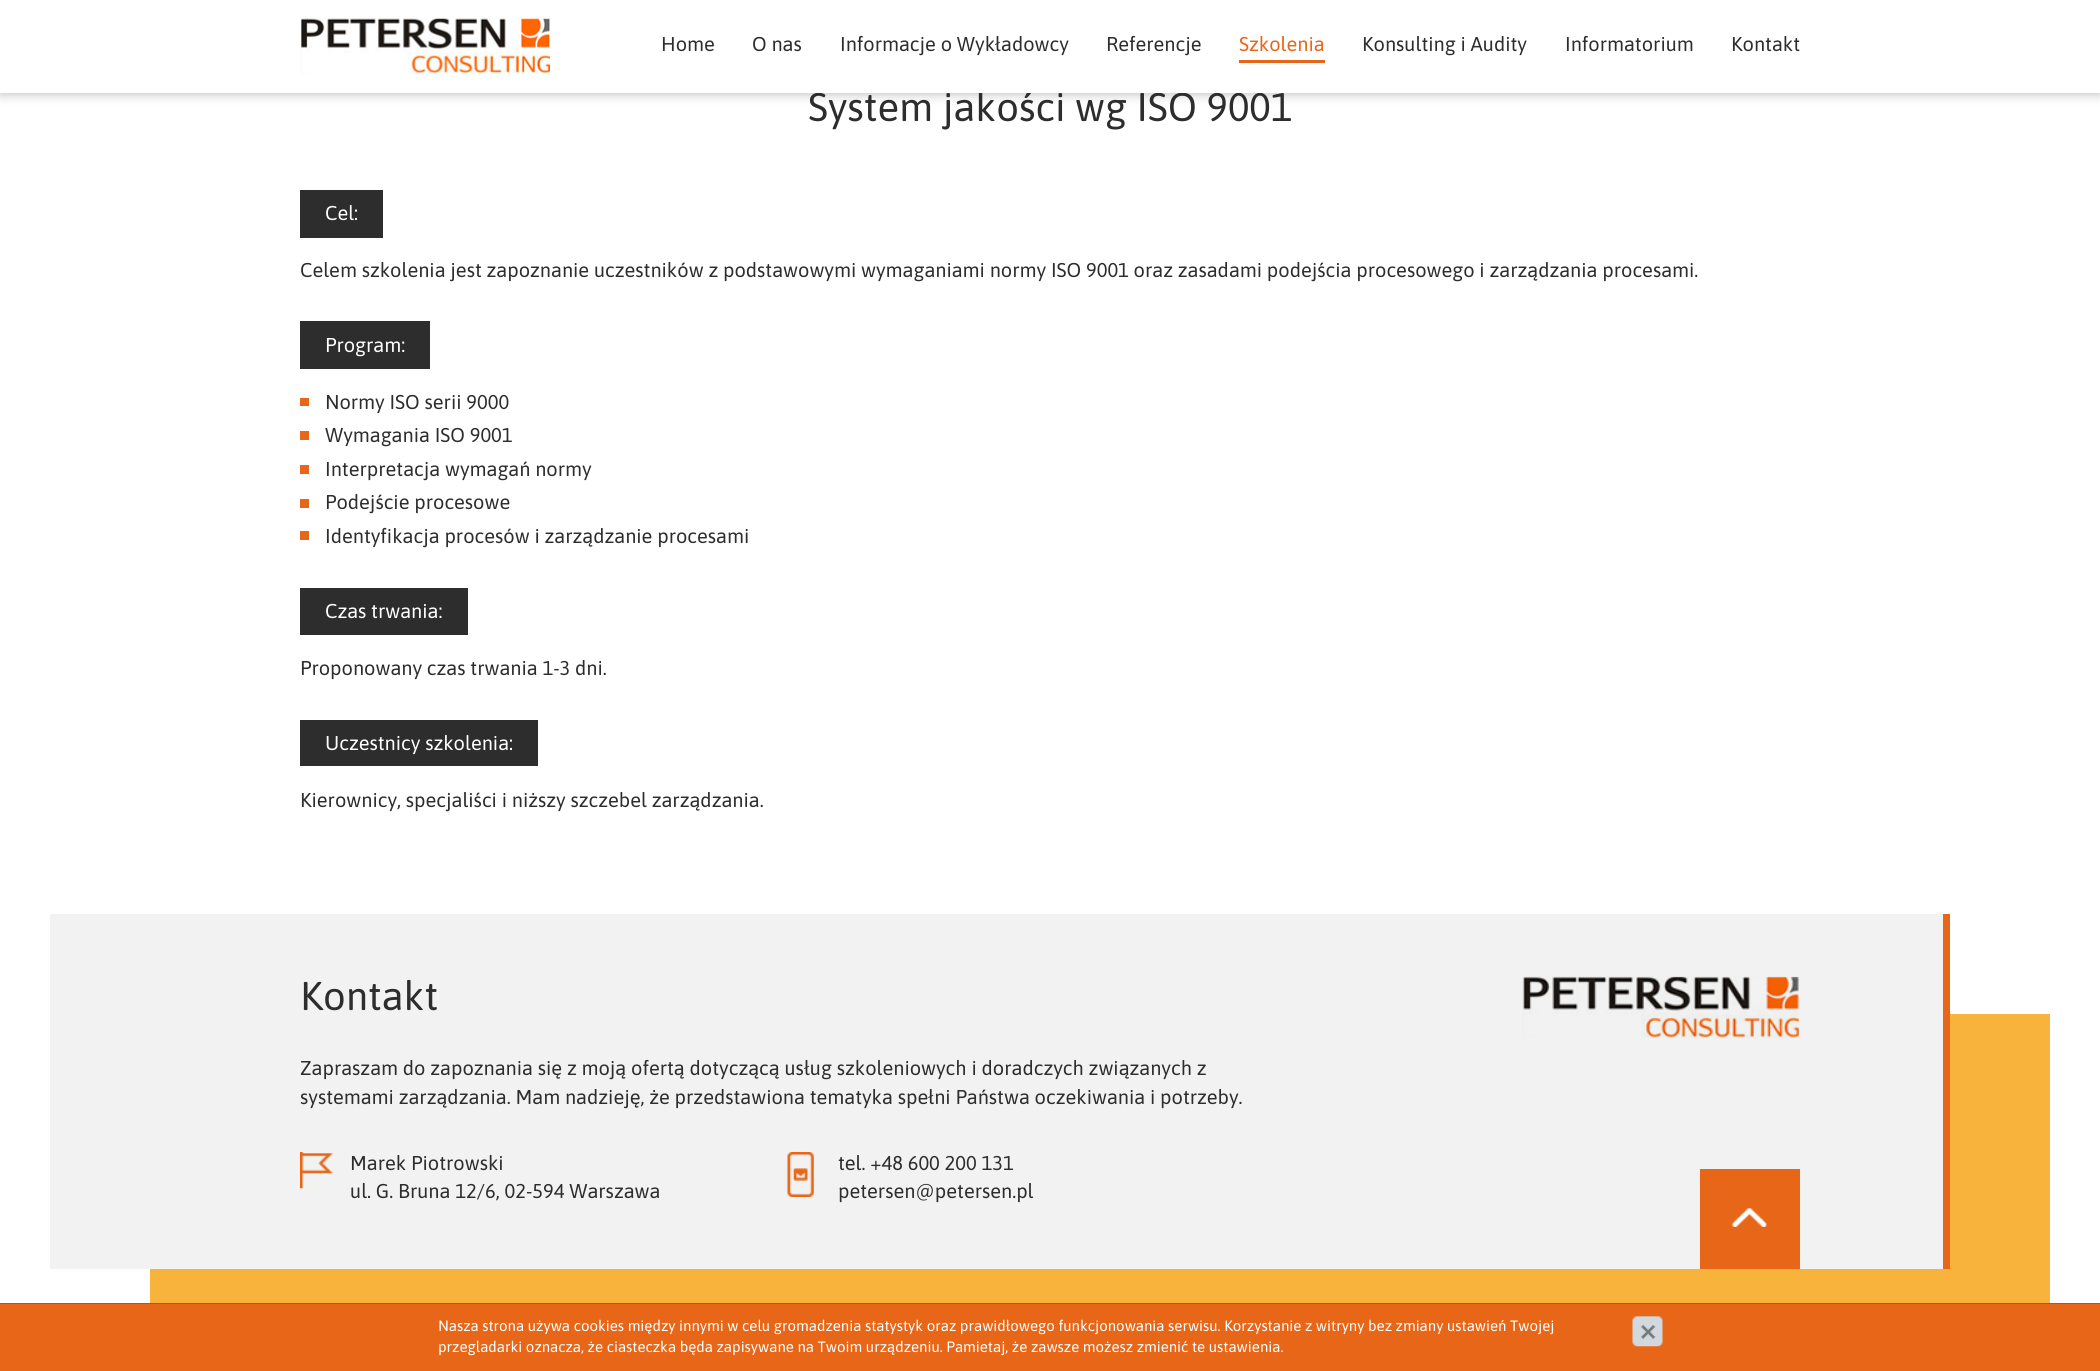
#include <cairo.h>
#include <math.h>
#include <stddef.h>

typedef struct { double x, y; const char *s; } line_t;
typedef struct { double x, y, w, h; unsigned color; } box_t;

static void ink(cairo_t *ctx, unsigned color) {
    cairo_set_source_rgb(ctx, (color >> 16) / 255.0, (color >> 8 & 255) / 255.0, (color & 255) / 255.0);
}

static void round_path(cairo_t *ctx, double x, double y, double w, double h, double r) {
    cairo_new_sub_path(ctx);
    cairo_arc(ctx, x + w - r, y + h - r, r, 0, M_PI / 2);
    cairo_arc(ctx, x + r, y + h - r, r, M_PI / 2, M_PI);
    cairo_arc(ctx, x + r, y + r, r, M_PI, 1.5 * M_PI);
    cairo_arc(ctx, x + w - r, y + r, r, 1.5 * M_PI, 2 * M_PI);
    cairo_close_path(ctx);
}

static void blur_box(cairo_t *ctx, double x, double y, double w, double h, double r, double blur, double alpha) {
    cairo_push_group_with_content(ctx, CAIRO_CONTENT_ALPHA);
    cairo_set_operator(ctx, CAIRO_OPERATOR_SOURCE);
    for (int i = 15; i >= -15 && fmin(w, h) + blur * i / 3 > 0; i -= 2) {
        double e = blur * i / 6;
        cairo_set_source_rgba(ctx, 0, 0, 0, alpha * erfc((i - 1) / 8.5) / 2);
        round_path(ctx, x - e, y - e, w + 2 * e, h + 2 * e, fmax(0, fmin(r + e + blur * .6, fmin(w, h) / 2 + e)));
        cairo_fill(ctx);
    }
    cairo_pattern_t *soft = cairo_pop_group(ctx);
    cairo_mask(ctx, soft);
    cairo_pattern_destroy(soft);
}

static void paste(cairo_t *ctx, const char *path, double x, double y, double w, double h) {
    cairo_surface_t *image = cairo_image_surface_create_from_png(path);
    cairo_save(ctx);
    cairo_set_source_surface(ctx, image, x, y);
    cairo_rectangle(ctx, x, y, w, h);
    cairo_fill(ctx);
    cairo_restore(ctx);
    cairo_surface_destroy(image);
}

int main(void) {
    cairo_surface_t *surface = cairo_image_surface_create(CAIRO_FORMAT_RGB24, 2100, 1371);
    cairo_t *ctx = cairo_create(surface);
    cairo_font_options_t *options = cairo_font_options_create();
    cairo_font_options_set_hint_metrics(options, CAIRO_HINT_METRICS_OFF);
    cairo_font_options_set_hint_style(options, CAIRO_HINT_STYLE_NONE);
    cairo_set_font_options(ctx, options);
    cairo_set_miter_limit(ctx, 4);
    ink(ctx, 0xFFFFFF);
    cairo_paint(ctx);
    ink(ctx, 0x000000);
    blur_box(ctx, 0, 0, 2100, 93, 0, 6, 0.3);
    cairo_select_font_face(ctx, "Asap", CAIRO_FONT_SLANT_NORMAL, CAIRO_FONT_WEIGHT_NORMAL);
    cairo_set_font_size(ctx, 40);
    ink(ctx, 0x2D2D2D);
    cairo_move_to(ctx, 808, 121);
    cairo_show_text(ctx, "System jakości wg ISO 9001");
    ink(ctx, 0xFFFFFF);
    cairo_rectangle(ctx, 0, 0, 2100, 93);
    cairo_fill(ctx);
    paste(ctx, "media/1.png", 300, 18, 250, 56);
    cairo_set_font_size(ctx, 20);
    ink(ctx, 0x2D2D2D);
    {
        static const line_t items[] = {
            {661, 51, "Home"},
            {752, 51, "O nas"},
            {840, 51, "Informacje o Wykładowcy"},
            {1106, 51, "Referencje"},
        };
        for (size_t i = 0; i < sizeof items / sizeof *items; i++) {
            cairo_move_to(ctx, items[i].x, items[i].y);
            cairo_show_text(ctx, items[i].s);
        }
    }
    ink(ctx, 0xE76617);
    cairo_move_to(ctx, 1239, 51);
    cairo_show_text(ctx, "Szkolenia");
    cairo_rectangle(ctx, 1239, 60, 86, 3);
    cairo_fill(ctx);
    ink(ctx, 0x2D2D2D);
    {
        static const line_t items[] = {
            {1362, 51, "Konsulting i Audity"},
            {1565, 51, "Informatorium"},
            {1731, 51, "Kontakt"},
        };
        for (size_t i = 0; i < sizeof items / sizeof *items; i++) {
            cairo_move_to(ctx, items[i].x, items[i].y);
            cairo_show_text(ctx, items[i].s);
        }
    }
    cairo_rectangle(ctx, 300, 190, 83, 48);
    cairo_fill(ctx);
    ink(ctx, 0xFFFFFF);
    cairo_move_to(ctx, 325, 220);
    cairo_show_text(ctx, "Cel:");
    ink(ctx, 0x2D2D2D);
    cairo_move_to(ctx, 300, 277);
    cairo_show_text(ctx, "Celem szkolenia jest zapoznanie uczestników z podstawowymi wymaganiami normy ISO 9001 oraz zasadami podejścia procesowego i zarządzania procesami.");
    cairo_rectangle(ctx, 300, 321, 130, 48);
    cairo_fill(ctx);
    ink(ctx, 0xFFFFFF);
    cairo_move_to(ctx, 325, 352);
    cairo_show_text(ctx, "Program:");
    ink(ctx, 0xE76617);
    cairo_rectangle(ctx, 300, 398, 9, 8);
    cairo_fill(ctx);
    ink(ctx, 0x2D2D2D);
    cairo_move_to(ctx, 325, 409);
    cairo_show_text(ctx, "Normy ISO serii 9000");
    ink(ctx, 0xE76617);
    cairo_rectangle(ctx, 300, 431, 9, 9);
    cairo_fill(ctx);
    ink(ctx, 0x2D2D2D);
    cairo_move_to(ctx, 325, 442);
    cairo_show_text(ctx, "Wymagania ISO 9001");
    ink(ctx, 0xE76617);
    cairo_rectangle(ctx, 300, 465, 9, 9);
    cairo_fill(ctx);
    ink(ctx, 0x2D2D2D);
    cairo_move_to(ctx, 325, 476);
    cairo_show_text(ctx, "Interpretacja wymagań normy");
    ink(ctx, 0xE76617);
    cairo_rectangle(ctx, 300, 499, 9, 9);
    cairo_fill(ctx);
    ink(ctx, 0x2D2D2D);
    cairo_move_to(ctx, 325, 509);
    cairo_show_text(ctx, "Podejście procesowe");
    ink(ctx, 0xE76617);
    cairo_rectangle(ctx, 300, 531, 9, 9);
    cairo_fill(ctx);
    ink(ctx, 0x2D2D2D);
    cairo_move_to(ctx, 325, 543);
    cairo_show_text(ctx, "Identyfikacja procesów i zarządzanie procesami");
    cairo_rectangle(ctx, 300, 588, 168, 47);
    cairo_fill(ctx);
    ink(ctx, 0xFFFFFF);
    cairo_move_to(ctx, 325, 618);
    cairo_show_text(ctx, "Czas trwania:");
    ink(ctx, 0x2D2D2D);
    cairo_move_to(ctx, 300, 675);
    cairo_show_text(ctx, "Proponowany czas trwania 1-3 dni.");
    cairo_rectangle(ctx, 300, 720, 238, 46);
    cairo_fill(ctx);
    ink(ctx, 0xFFFFFF);
    cairo_move_to(ctx, 325, 750);
    cairo_show_text(ctx, "Uczestnicy szkolenia:");
    ink(ctx, 0x2D2D2D);
    cairo_move_to(ctx, 300, 807);
    cairo_show_text(ctx, "Kierownicy, specjaliści i niższy szczebel zarządzania.");
    ink(ctx, 0xF2F2F2);
    cairo_rectangle(ctx, 50, 914, 1893, 355);
    cairo_fill(ctx);
    paste(ctx, "media/2.png", 1522, 976, 277, 63);
    cairo_set_font_size(ctx, 40);
    ink(ctx, 0x2D2D2D);
    cairo_move_to(ctx, 300, 1010);
    cairo_show_text(ctx, "Kontakt");
    cairo_set_font_size(ctx, 20);
    cairo_move_to(ctx, 300, 1075);
    cairo_show_text(ctx, "Zapraszam do zapoznania się z moją ofertą dotyczącą usług szkoleniowych i doradczych związanych z");
    cairo_move_to(ctx, 300, 1104);
    cairo_show_text(ctx, "systemami zarządzania. Mam nadzieję, że przedstawiona tematyka spełni Państwa oczekiwania i potrzeby.");
    paste(ctx, "media/3.png", 300, 1152, 33, 37);
    cairo_move_to(ctx, 350, 1170);
    cairo_show_text(ctx, "Marek Piotrowski");
    cairo_move_to(ctx, 350, 1198);
    cairo_show_text(ctx, "ul. G. Bruna 12/6, 02-594 Warszawa");
    paste(ctx, "media/4.png", 787, 1152, 27, 45);
    cairo_move_to(ctx, 838, 1170);
    cairo_show_text(ctx, "tel. +48 600 200 131");
    cairo_move_to(ctx, 838, 1198);
    cairo_show_text(ctx, "petersen@petersen.pl");
    ink(ctx, 0xE76617);
    cairo_rectangle(ctx, 1700, 1169, 100, 100);
    cairo_fill(ctx);
    paste(ctx, "media/5.png", 1732, 1208, 35, 19);
    {
        static const box_t items[] = {
            {1943, 914, 7, 355, 0xE76617},
            {1950, 1014, 100, 289, 0xF7B33C},
            {150, 1269, 1800, 34, 0xF7B33C},
            {0, 1304, 2100, 67, 0xE76617},
            {0, 1303, 2100, 1, 0xB95212},
        };
        for (size_t i = 0; i < sizeof items / sizeof *items; i++) {
            ink(ctx, items[i].color);
            cairo_rectangle(ctx, items[i].x, items[i].y, items[i].w, items[i].h);
            cairo_fill(ctx);
        }
    }
    cairo_set_font_size(ctx, 15);
    ink(ctx, 0xFFFFFF);
    cairo_move_to(ctx, 438, 1331);
    cairo_show_text(ctx, "Nasza strona używa cookies między innymi w celu gromadzenia statystyk oraz prawidłowego funkcjonowania serwisu. Korzystanie z witryny bez zmiany ustawień Twojej");
    paste(ctx, "media/6.png", 1632, 1316, 31, 31);
    cairo_move_to(ctx, 438, 1352);
    cairo_show_text(ctx, "przegladarki oznacza, że ciasteczka będa zapisywane na Twoim urządzeniu. Pamietaj, że zawsze możesz zmienić te ustawienia.");
    cairo_surface_write_to_png(surface, "image.png");
    cairo_font_options_destroy(options);
    cairo_destroy(ctx);
    cairo_surface_destroy(surface);
    return 0;
}
